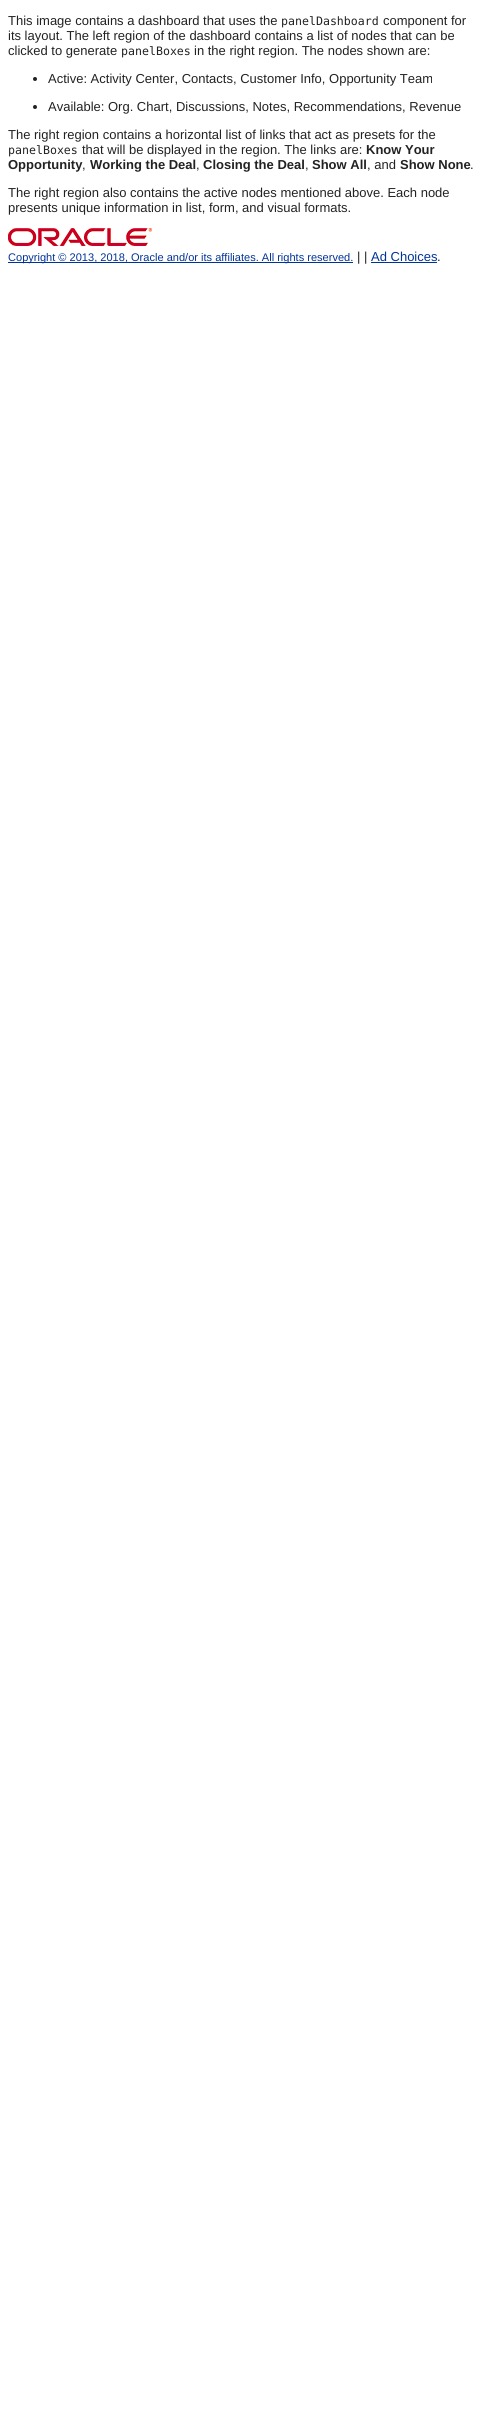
#include <cairo.h>
#include <math.h>
#include <stddef.h>

typedef struct { double x, y; const char *s; } line_t;

static void ink(cairo_t *ctx, unsigned color) {
    cairo_set_source_rgb(ctx, (color >> 16) / 255.0, (color >> 8 & 255) / 255.0, (color & 255) / 255.0);
}

static void paste(cairo_t *ctx, const char *path, double x, double y, double w, double h) {
    cairo_surface_t *image = cairo_image_surface_create_from_png(path);
    cairo_save(ctx);
    cairo_set_source_surface(ctx, image, x, y);
    cairo_rectangle(ctx, x, y, w, h);
    cairo_fill(ctx);
    cairo_restore(ctx);
    cairo_surface_destroy(image);
}

int main(void) {
    cairo_surface_t *surface = cairo_image_surface_create(CAIRO_FORMAT_RGB24, 483, 2429);
    cairo_t *ctx = cairo_create(surface);
    cairo_font_options_t *options = cairo_font_options_create();
    cairo_font_options_set_hint_metrics(options, CAIRO_HINT_METRICS_OFF);
    cairo_font_options_set_hint_style(options, CAIRO_HINT_STYLE_NONE);
    cairo_set_font_options(ctx, options);
    cairo_set_miter_limit(ctx, 4);
    ink(ctx, 0xFFFFFF);
    cairo_paint(ctx);
    cairo_select_font_face(ctx, "Liberation Sans", CAIRO_FONT_SLANT_NORMAL, CAIRO_FONT_WEIGHT_NORMAL);
    cairo_set_font_size(ctx, 13);
    ink(ctx, 0x222222);
    cairo_move_to(ctx, 8, 25);
    cairo_show_text(ctx, "This image contains a dashboard that uses the");
    cairo_select_font_face(ctx, "DejaVu Sans Mono", CAIRO_FONT_SLANT_NORMAL, CAIRO_FONT_WEIGHT_NORMAL);
    cairo_set_font_size(ctx, 11.6);
    cairo_move_to(ctx, 281, 25);
    cairo_show_text(ctx, "panelDashboard");
    cairo_select_font_face(ctx, "Liberation Sans", CAIRO_FONT_SLANT_NORMAL, CAIRO_FONT_WEIGHT_NORMAL);
    cairo_set_font_size(ctx, 13);
    {
        static const line_t items[] = {
            {383, 25, "component for"},
            {8, 40, "its layout. The left region of the dashboard contains a list of nodes that can be"},
            {8, 55, "clicked to generate"},
        };
        for (size_t i = 0; i < sizeof items / sizeof *items; i++) {
            cairo_move_to(ctx, items[i].x, items[i].y);
            cairo_show_text(ctx, items[i].s);
        }
    }
    cairo_select_font_face(ctx, "DejaVu Sans Mono", CAIRO_FONT_SLANT_NORMAL, CAIRO_FONT_WEIGHT_NORMAL);
    cairo_set_font_size(ctx, 11.6);
    cairo_move_to(ctx, 121, 55);
    cairo_show_text(ctx, "panelBoxes");
    cairo_select_font_face(ctx, "Liberation Sans", CAIRO_FONT_SLANT_NORMAL, CAIRO_FONT_WEIGHT_NORMAL);
    cairo_set_font_size(ctx, 13);
    cairo_move_to(ctx, 194, 55);
    cairo_show_text(ctx, "in the right region. The nodes shown are:");
    cairo_new_path(ctx);
    cairo_arc(ctx, 35, 79, 2, 0, 2 * M_PI);
    cairo_fill(ctx);
    cairo_move_to(ctx, 48, 83);
    cairo_show_text(ctx, "Active: Activity Center, Contacts, Customer Info, Opportunity Team");
    cairo_new_path(ctx);
    cairo_arc(ctx, 35, 107, 2, 0, 2 * M_PI);
    cairo_fill(ctx);
    cairo_move_to(ctx, 48, 111);
    cairo_show_text(ctx, "Available: Org. Chart, Discussions, Notes, Recommendations, Revenue");
    cairo_move_to(ctx, 8, 139);
    cairo_show_text(ctx, "The right region contains a horizontal list of links that act as presets for the");
    cairo_select_font_face(ctx, "DejaVu Sans Mono", CAIRO_FONT_SLANT_NORMAL, CAIRO_FONT_WEIGHT_NORMAL);
    cairo_set_font_size(ctx, 11.6);
    cairo_move_to(ctx, 8, 154);
    cairo_show_text(ctx, "panelBoxes");
    cairo_select_font_face(ctx, "Liberation Sans", CAIRO_FONT_SLANT_NORMAL, CAIRO_FONT_WEIGHT_NORMAL);
    cairo_set_font_size(ctx, 13);
    cairo_move_to(ctx, 82, 154);
    cairo_show_text(ctx, "that will be displayed in the region. The links are:");
    cairo_select_font_face(ctx, "Liberation Sans", CAIRO_FONT_SLANT_NORMAL, CAIRO_FONT_WEIGHT_BOLD);
    cairo_move_to(ctx, 366, 154);
    cairo_show_text(ctx, "Know Your");
    cairo_move_to(ctx, 8, 169);
    cairo_show_text(ctx, "Opportunity");
    cairo_select_font_face(ctx, "Liberation Sans", CAIRO_FONT_SLANT_NORMAL, CAIRO_FONT_WEIGHT_NORMAL);
    cairo_move_to(ctx, 82, 169);
    cairo_show_text(ctx, ",");
    cairo_select_font_face(ctx, "Liberation Sans", CAIRO_FONT_SLANT_NORMAL, CAIRO_FONT_WEIGHT_BOLD);
    cairo_move_to(ctx, 90, 169);
    cairo_show_text(ctx, "Working the Deal");
    cairo_select_font_face(ctx, "Liberation Sans", CAIRO_FONT_SLANT_NORMAL, CAIRO_FONT_WEIGHT_NORMAL);
    cairo_move_to(ctx, 196, 169);
    cairo_show_text(ctx, ",");
    cairo_select_font_face(ctx, "Liberation Sans", CAIRO_FONT_SLANT_NORMAL, CAIRO_FONT_WEIGHT_BOLD);
    cairo_move_to(ctx, 203, 169);
    cairo_show_text(ctx, "Closing the Deal");
    cairo_select_font_face(ctx, "Liberation Sans", CAIRO_FONT_SLANT_NORMAL, CAIRO_FONT_WEIGHT_NORMAL);
    cairo_move_to(ctx, 305, 169);
    cairo_show_text(ctx, ",");
    cairo_select_font_face(ctx, "Liberation Sans", CAIRO_FONT_SLANT_NORMAL, CAIRO_FONT_WEIGHT_BOLD);
    cairo_move_to(ctx, 312, 169);
    cairo_show_text(ctx, "Show All");
    cairo_select_font_face(ctx, "Liberation Sans", CAIRO_FONT_SLANT_NORMAL, CAIRO_FONT_WEIGHT_NORMAL);
    cairo_move_to(ctx, 367, 169);
    cairo_show_text(ctx, ", and");
    cairo_select_font_face(ctx, "Liberation Sans", CAIRO_FONT_SLANT_NORMAL, CAIRO_FONT_WEIGHT_BOLD);
    cairo_move_to(ctx, 400, 169);
    cairo_show_text(ctx, "Show None");
    cairo_select_font_face(ctx, "Liberation Sans", CAIRO_FONT_SLANT_NORMAL, CAIRO_FONT_WEIGHT_NORMAL);
    {
        static const line_t items[] = {
            {470, 169, "."},
            {8, 197, "The right region also contains the active nodes mentioned above. Each node"},
            {8, 212, "presents unique information in list, form, and visual formats."},
        };
        for (size_t i = 0; i < sizeof items / sizeof *items; i++) {
            cairo_move_to(ctx, items[i].x, items[i].y);
            cairo_show_text(ctx, items[i].s);
        }
    }
    paste(ctx, "media/1.png", 8, 228, 144, 18);
    ink(ctx, 0x003399);
    cairo_rectangle(ctx, 8, 262, 345, 1);
    cairo_fill(ctx);
    cairo_set_font_size(ctx, 11.05);
    cairo_move_to(ctx, 8, 261);
    cairo_show_text(ctx, "Copyright © 2013, 2018, Oracle and/or its affiliates. All rights reserved.");
    cairo_set_font_size(ctx, 13);
    ink(ctx, 0x222222);
    cairo_move_to(ctx, 357, 261);
    cairo_show_text(ctx, "| |");
    ink(ctx, 0x003399);
    cairo_move_to(ctx, 371, 261);
    cairo_show_text(ctx, "Ad Choices");
    cairo_rectangle(ctx, 371, 262, 66, 1);
    cairo_fill(ctx);
    ink(ctx, 0x222222);
    cairo_move_to(ctx, 437, 261);
    cairo_show_text(ctx, ".");
    cairo_surface_write_to_png(surface, "image.png");
    cairo_font_options_destroy(options);
    cairo_destroy(ctx);
    cairo_surface_destroy(surface);
    return 0;
}
